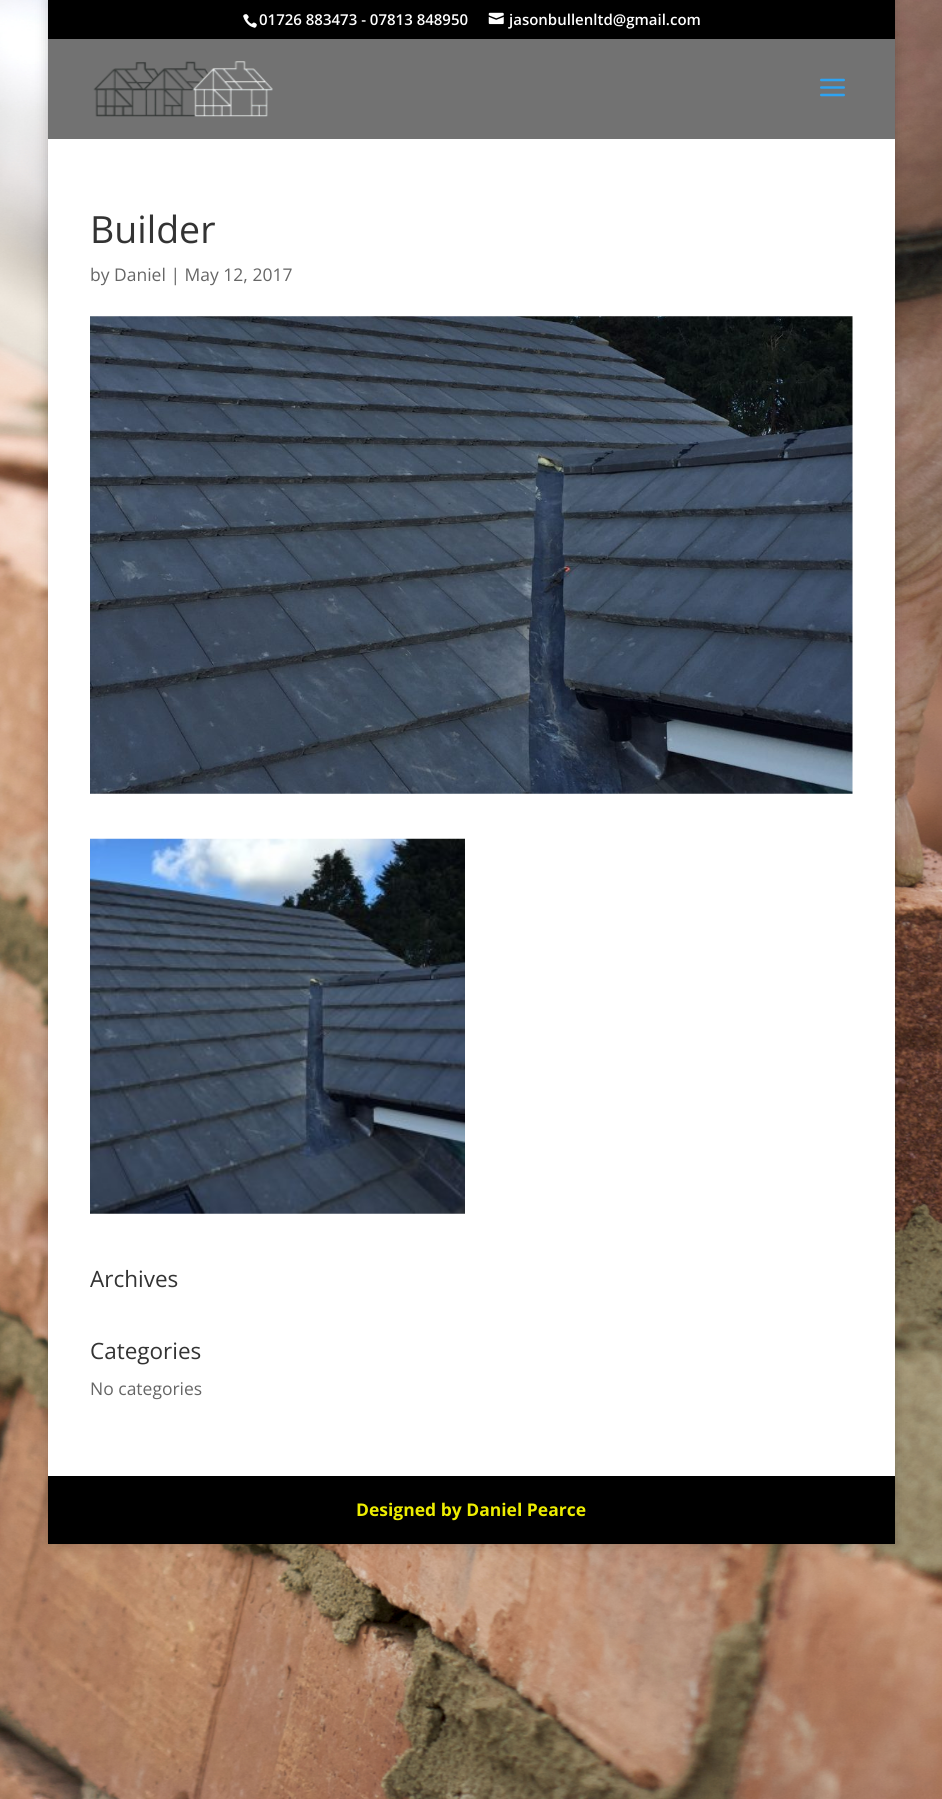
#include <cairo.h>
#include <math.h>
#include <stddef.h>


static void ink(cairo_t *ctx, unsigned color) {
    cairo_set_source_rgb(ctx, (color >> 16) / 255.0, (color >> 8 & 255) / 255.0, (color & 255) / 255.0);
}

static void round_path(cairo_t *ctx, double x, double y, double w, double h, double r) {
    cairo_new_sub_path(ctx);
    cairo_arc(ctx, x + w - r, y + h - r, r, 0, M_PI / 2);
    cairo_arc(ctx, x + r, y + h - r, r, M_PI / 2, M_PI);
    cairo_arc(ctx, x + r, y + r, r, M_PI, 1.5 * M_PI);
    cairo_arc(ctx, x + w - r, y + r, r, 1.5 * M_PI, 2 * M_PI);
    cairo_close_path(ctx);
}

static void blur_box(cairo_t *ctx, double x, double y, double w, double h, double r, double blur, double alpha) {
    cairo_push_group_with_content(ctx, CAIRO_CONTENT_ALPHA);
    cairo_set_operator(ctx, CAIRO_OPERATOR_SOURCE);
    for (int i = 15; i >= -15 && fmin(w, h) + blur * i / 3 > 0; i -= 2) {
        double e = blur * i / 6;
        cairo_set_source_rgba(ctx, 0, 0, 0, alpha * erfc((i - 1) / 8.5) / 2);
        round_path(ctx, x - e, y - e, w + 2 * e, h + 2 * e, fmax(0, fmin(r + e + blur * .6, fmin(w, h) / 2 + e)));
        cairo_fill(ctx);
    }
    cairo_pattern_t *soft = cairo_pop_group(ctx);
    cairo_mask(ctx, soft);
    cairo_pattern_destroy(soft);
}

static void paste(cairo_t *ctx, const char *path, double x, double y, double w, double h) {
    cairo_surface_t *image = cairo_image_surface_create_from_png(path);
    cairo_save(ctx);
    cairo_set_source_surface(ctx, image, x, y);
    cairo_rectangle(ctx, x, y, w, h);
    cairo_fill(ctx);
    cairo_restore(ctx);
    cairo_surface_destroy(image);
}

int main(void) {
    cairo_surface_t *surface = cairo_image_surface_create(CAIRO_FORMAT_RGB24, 942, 1799);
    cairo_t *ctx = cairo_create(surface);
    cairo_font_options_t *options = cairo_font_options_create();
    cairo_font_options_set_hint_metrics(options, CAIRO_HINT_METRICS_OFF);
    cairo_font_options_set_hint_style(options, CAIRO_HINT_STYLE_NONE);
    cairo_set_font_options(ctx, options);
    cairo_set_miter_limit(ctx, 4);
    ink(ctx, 0xFFFFFF);
    cairo_paint(ctx);
    paste(ctx, "media/1.png", 0, 0, 942, 1799);
    ink(ctx, 0x000000);
    blur_box(ctx, 48, 0, 847, 1544, 0, 6, 0.2);
    ink(ctx, 0x000000);
    cairo_rectangle(ctx, 48, 0, 847, 39);
    cairo_fill(ctx);
    paste(ctx, "media/2.png", 243, 14, 14, 14);
    cairo_select_font_face(ctx, "Open Sans SemiBold", CAIRO_FONT_SLANT_NORMAL, CAIRO_FONT_WEIGHT_NORMAL);
    cairo_set_font_size(ctx, 15);
    ink(ctx, 0xFFFFFF);
    cairo_move_to(ctx, 259, 25);
    cairo_show_text(ctx, "01726 883473 - 07813 848950");
    paste(ctx, "media/3.png", 488, 12, 16, 13);
    cairo_move_to(ctx, 509, 25);
    cairo_show_text(ctx, "jasonbullenltd@gmail.com");
    ink(ctx, 0x727272);
    cairo_rectangle(ctx, 48, 39, 847, 100);
    cairo_fill(ctx);
    paste(ctx, "media/4.png", 93, 61, 180, 56);
    paste(ctx, "media/5.png", 820, 78, 25, 19);
    ink(ctx, 0xFFFFFF);
    cairo_rectangle(ctx, 48, 139, 847, 1337);
    cairo_fill(ctx);
    cairo_select_font_face(ctx, "Open Sans", CAIRO_FONT_SLANT_NORMAL, CAIRO_FONT_WEIGHT_NORMAL);
    cairo_set_font_size(ctx, 37.5);
    ink(ctx, 0x333333);
    cairo_move_to(ctx, 90, 243);
    cairo_show_text(ctx, "Builder");
    cairo_set_font_size(ctx, 17.5);
    ink(ctx, 0x666666);
    cairo_move_to(ctx, 90, 281);
    cairo_show_text(ctx, "by Daniel | May 12, 2017");
    paste(ctx, "media/6.png", 90, 316, 763, 478);
    paste(ctx, "media/7.png", 90, 838, 375, 376);
    cairo_set_font_size(ctx, 22.5);
    ink(ctx, 0x333333);
    cairo_move_to(ctx, 90, 1287);
    cairo_show_text(ctx, "Archives");
    cairo_move_to(ctx, 90, 1359);
    cairo_show_text(ctx, "Categories");
    cairo_set_font_size(ctx, 17.5);
    ink(ctx, 0x666666);
    cairo_move_to(ctx, 90, 1395);
    cairo_show_text(ctx, "No categories");
    ink(ctx, 0x000000);
    cairo_rectangle(ctx, 48, 1476, 847, 68);
    cairo_fill(ctx);
    cairo_select_font_face(ctx, "Open Sans", CAIRO_FONT_SLANT_NORMAL, CAIRO_FONT_WEIGHT_BOLD);
    ink(ctx, 0xEDED00);
    cairo_move_to(ctx, 356, 1516);
    cairo_show_text(ctx, "Designed by Daniel Pearce");
    cairo_surface_write_to_png(surface, "image.png");
    cairo_font_options_destroy(options);
    cairo_destroy(ctx);
    cairo_surface_destroy(surface);
    return 0;
}
